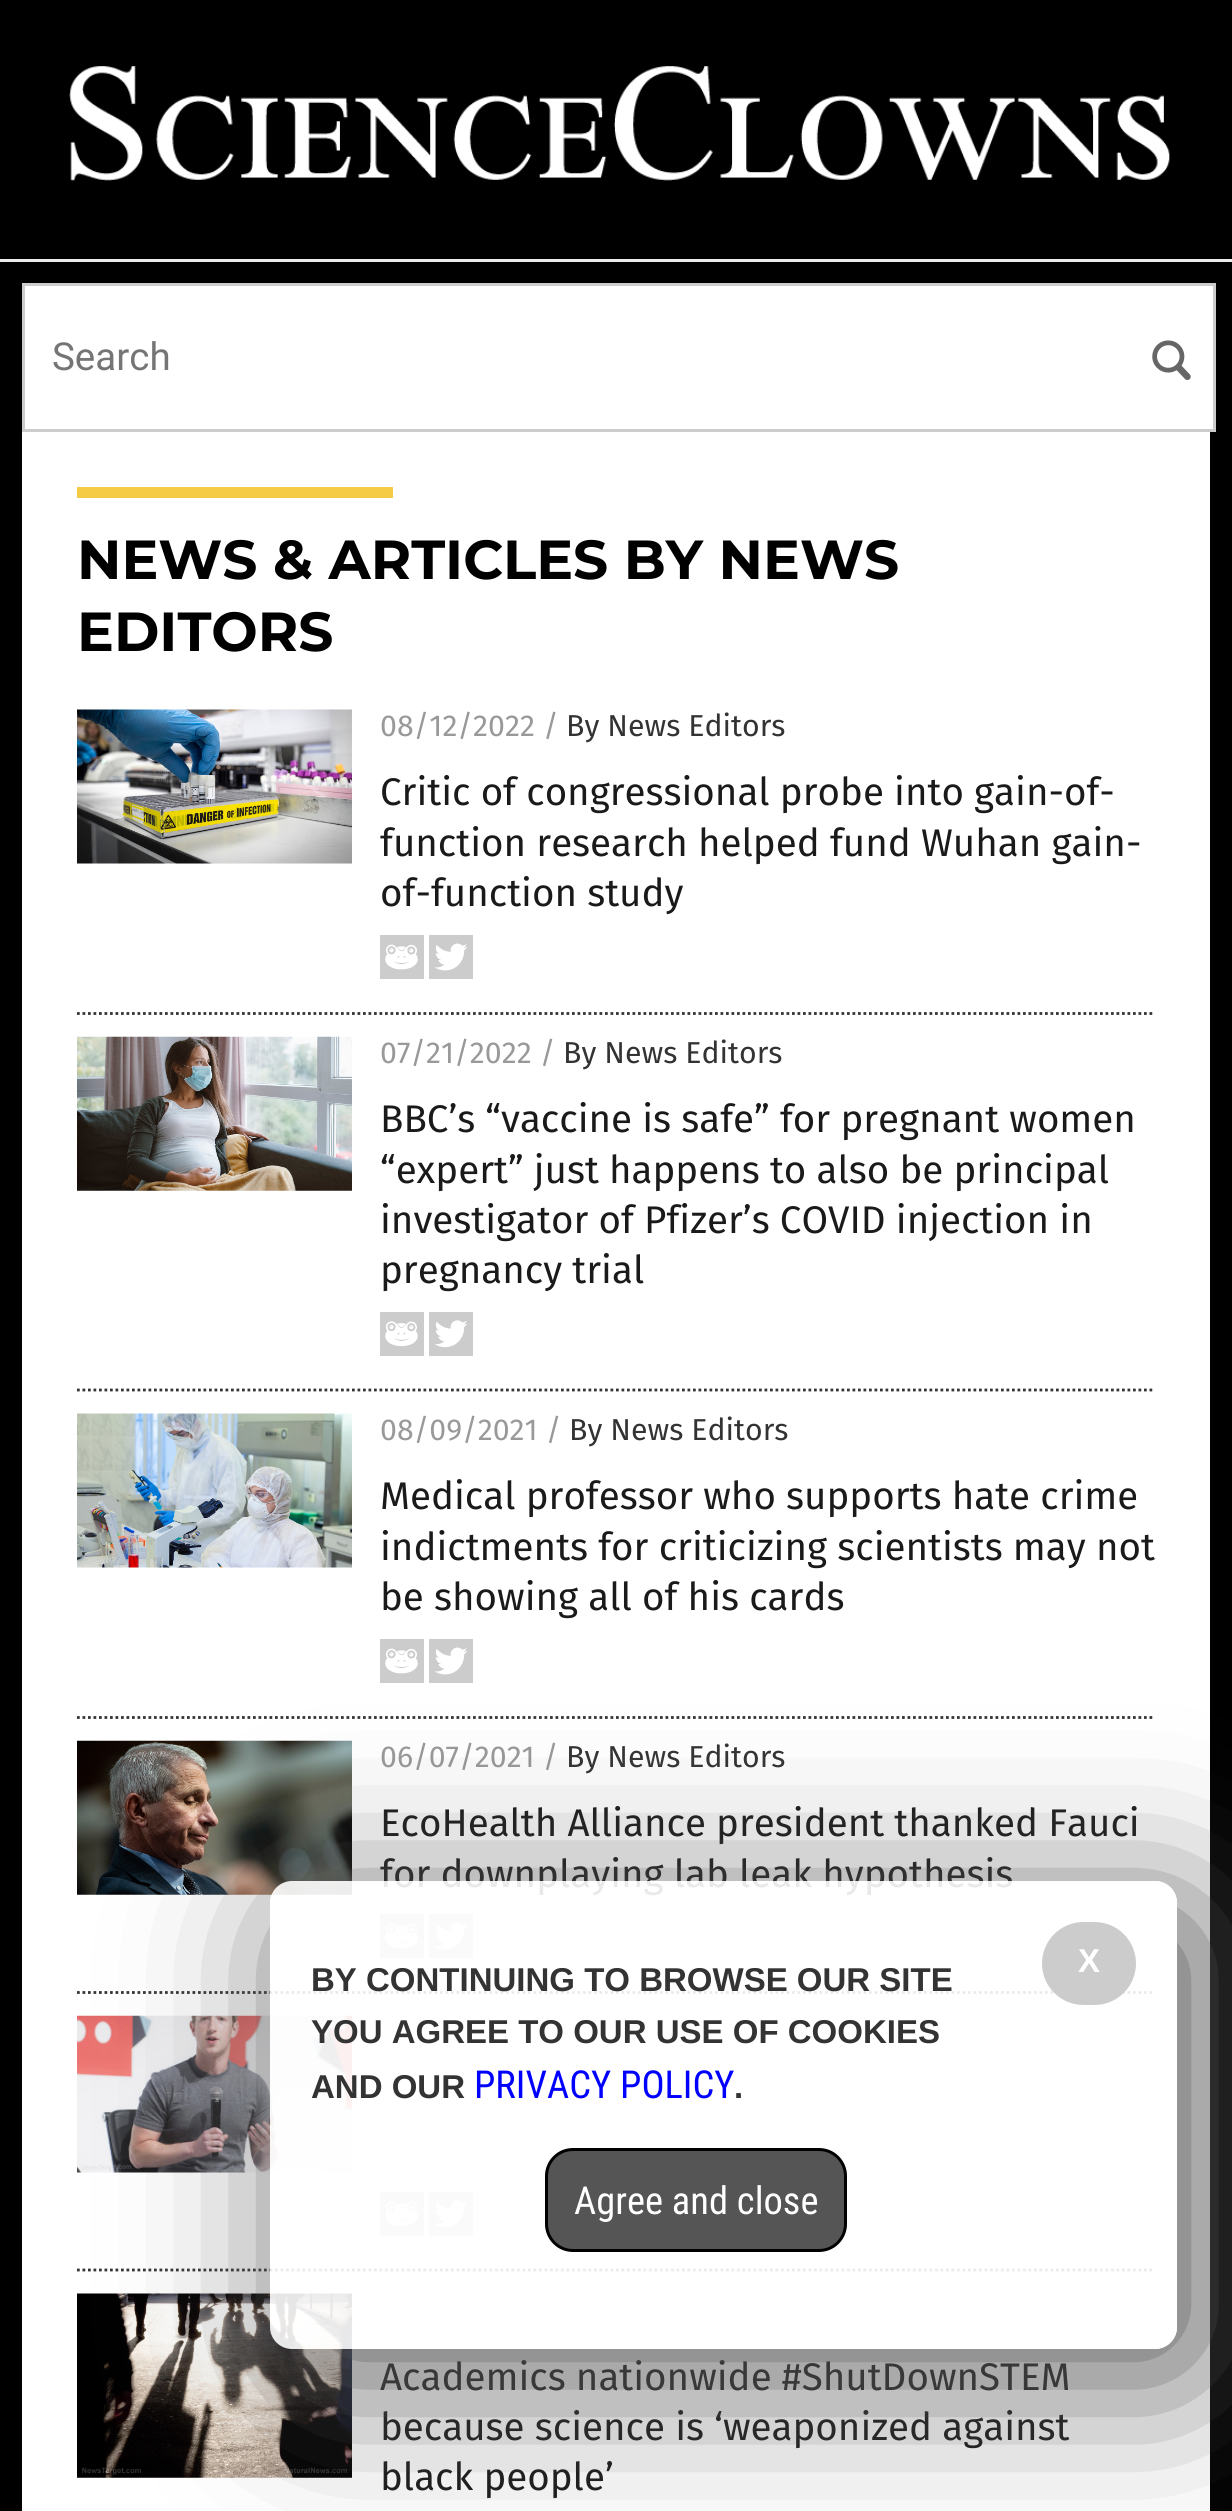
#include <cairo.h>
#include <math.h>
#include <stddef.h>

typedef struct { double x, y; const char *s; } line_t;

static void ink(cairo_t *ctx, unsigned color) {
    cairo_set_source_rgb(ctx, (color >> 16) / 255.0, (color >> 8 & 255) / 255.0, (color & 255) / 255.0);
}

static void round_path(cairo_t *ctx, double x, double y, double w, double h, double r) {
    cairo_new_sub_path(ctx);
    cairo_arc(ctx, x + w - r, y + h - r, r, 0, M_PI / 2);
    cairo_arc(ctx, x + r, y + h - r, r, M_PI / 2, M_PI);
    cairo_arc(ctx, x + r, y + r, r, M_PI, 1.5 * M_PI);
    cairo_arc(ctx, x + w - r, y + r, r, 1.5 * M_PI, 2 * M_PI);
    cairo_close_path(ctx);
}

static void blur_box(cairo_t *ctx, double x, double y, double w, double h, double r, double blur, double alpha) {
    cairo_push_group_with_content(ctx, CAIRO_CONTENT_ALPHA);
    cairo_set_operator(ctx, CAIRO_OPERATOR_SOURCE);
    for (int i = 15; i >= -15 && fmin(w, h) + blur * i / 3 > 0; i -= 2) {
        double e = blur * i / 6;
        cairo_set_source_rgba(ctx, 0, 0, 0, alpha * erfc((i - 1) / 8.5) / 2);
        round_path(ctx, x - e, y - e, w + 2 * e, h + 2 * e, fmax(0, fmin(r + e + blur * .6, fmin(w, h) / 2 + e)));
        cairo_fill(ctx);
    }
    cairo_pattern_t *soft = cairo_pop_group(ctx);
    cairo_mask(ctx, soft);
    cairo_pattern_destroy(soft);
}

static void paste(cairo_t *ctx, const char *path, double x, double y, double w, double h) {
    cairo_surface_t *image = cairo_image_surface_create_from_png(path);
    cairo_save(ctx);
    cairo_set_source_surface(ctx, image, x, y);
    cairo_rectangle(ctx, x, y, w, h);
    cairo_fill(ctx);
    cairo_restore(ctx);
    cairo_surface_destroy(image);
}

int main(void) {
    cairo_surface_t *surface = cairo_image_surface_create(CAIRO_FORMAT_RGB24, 1232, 2511);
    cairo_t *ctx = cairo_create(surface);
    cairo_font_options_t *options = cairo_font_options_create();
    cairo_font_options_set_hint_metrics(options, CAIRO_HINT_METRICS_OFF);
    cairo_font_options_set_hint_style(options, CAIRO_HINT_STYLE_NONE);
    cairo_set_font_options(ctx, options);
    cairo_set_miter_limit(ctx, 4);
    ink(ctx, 0x000000);
    cairo_paint(ctx);
    paste(ctx, "media/1.png", 69, 66, 1101, 115);
    ink(ctx, 0xECECEC);
    cairo_rectangle(ctx, 0, 259, 1232, 3);
    cairo_fill(ctx);
    ink(ctx, 0xFFFFFF);
    cairo_rectangle(ctx, 23.5, 284.5, 1191, 146);
    cairo_fill_preserve(ctx);
    ink(ctx, 0xCCCCCC);
    cairo_set_line_width(ctx, 3);
    cairo_stroke(ctx);
    cairo_select_font_face(ctx, "Roboto", CAIRO_FONT_SLANT_NORMAL, CAIRO_FONT_WEIGHT_NORMAL);
    cairo_set_font_size(ctx, 38.5);
    ink(ctx, 0x757575);
    cairo_move_to(ctx, 52, 370);
    cairo_show_text(ctx, "Search");
    paste(ctx, "media/2.png", 1152, 340, 39, 40);
    ink(ctx, 0xFFFFFF);
    cairo_rectangle(ctx, 22, 432, 1188, 2079);
    cairo_fill(ctx);
    ink(ctx, 0xF5CA45);
    cairo_rectangle(ctx, 77, 487, 316, 11);
    cairo_fill(ctx);
    cairo_select_font_face(ctx, "Montserrat", CAIRO_FONT_SLANT_NORMAL, CAIRO_FONT_WEIGHT_BOLD);
    cairo_set_font_size(ctx, 55);
    ink(ctx, 0x000000);
    cairo_move_to(ctx, 77, 579);
    cairo_show_text(ctx, "NEWS & ARTICLES BY NEWS");
    cairo_move_to(ctx, 77, 651);
    cairo_show_text(ctx, "EDITORS");
    cairo_new_path(ctx);
    cairo_move_to(ctx, 77, 1013.5);
    cairo_line_to(ctx, 1155, 1013.5);
    ink(ctx, 0x343434);
    cairo_set_line_width(ctx, 2.8);
    cairo_set_dash(ctx, (double[]){2.75, 2.75}, 2, 0);
    cairo_stroke(ctx);
    paste(ctx, "media/3.png", 77, 709, 275, 155);
    cairo_select_font_face(ctx, "Fira Sans", CAIRO_FONT_SLANT_NORMAL, CAIRO_FONT_WEIGHT_NORMAL);
    cairo_set_font_size(ctx, 30.25);
    ink(ctx, 0x999999);
    cairo_move_to(ctx, 380, 736);
    cairo_show_text(ctx, "08/12/2022 /");
    ink(ctx, 0x333333);
    cairo_move_to(ctx, 566, 736);
    cairo_show_text(ctx, "By News Editors");
    cairo_set_font_size(ctx, 38.5);
    ink(ctx, 0x1A1A1A);
    {
        static const line_t items[] = {
            {380, 805, "Critic of congressional probe into gain-of-"},
            {380, 856, "function research helped fund Wuhan gain-"},
            {380, 906, "of-function study"},
        };
        for (size_t i = 0; i < sizeof items / sizeof *items; i++) {
            cairo_move_to(ctx, items[i].x, items[i].y);
            cairo_show_text(ctx, items[i].s);
        }
    }
    paste(ctx, "media/4.png", 380, 935, 44, 44);
    paste(ctx, "media/5.png", 429, 935, 44, 44);
    cairo_new_path(ctx);
    cairo_move_to(ctx, 77, 1390);
    cairo_line_to(ctx, 1155, 1390);
    ink(ctx, 0x343434);
    cairo_stroke(ctx);
    paste(ctx, "media/6.png", 77, 1036, 275, 155);
    cairo_set_font_size(ctx, 30.25);
    ink(ctx, 0x999999);
    cairo_move_to(ctx, 380, 1063);
    cairo_show_text(ctx, "07/21/2022 /");
    ink(ctx, 0x333333);
    cairo_move_to(ctx, 563, 1063);
    cairo_show_text(ctx, "By News Editors");
    cairo_set_font_size(ctx, 38.5);
    ink(ctx, 0x1A1A1A);
    {
        static const line_t items[] = {
            {380, 1132, "BBC’s “vaccine is safe” for pregnant women"},
            {380, 1183, "“expert” just happens to also be principal"},
            {380, 1233, "investigator of Pfizer’s COVID injection in"},
            {380, 1283, "pregnancy trial"},
        };
        for (size_t i = 0; i < sizeof items / sizeof *items; i++) {
            cairo_move_to(ctx, items[i].x, items[i].y);
            cairo_show_text(ctx, items[i].s);
        }
    }
    paste(ctx, "media/7.png", 380, 1312, 44, 44);
    paste(ctx, "media/8.png", 429, 1312, 44, 44);
    cairo_new_path(ctx);
    cairo_move_to(ctx, 77, 1717.5);
    cairo_line_to(ctx, 1155, 1717.5);
    ink(ctx, 0x343434);
    cairo_stroke(ctx);
    paste(ctx, "media/9.png", 77, 1413, 275, 155);
    cairo_set_font_size(ctx, 30.25);
    ink(ctx, 0x999999);
    cairo_move_to(ctx, 380, 1440);
    cairo_show_text(ctx, "08/09/2021 /");
    ink(ctx, 0x333333);
    cairo_move_to(ctx, 569, 1440);
    cairo_show_text(ctx, "By News Editors");
    cairo_set_font_size(ctx, 38.5);
    ink(ctx, 0x1A1A1A);
    {
        static const line_t items[] = {
            {380, 1509, "Medical professor who supports hate crime"},
            {380, 1560, "indictments for criticizing scientists may not"},
            {380, 1610, "be showing all of his cards"},
        };
        for (size_t i = 0; i < sizeof items / sizeof *items; i++) {
            cairo_move_to(ctx, items[i].x, items[i].y);
            cairo_show_text(ctx, items[i].s);
        }
    }
    paste(ctx, "media/4.png", 380, 1639, 44, 44);
    paste(ctx, "media/5.png", 429, 1639, 44, 44);
    cairo_new_path(ctx);
    cairo_move_to(ctx, 77, 1992.5);
    cairo_line_to(ctx, 1155, 1992.5);
    ink(ctx, 0x343434);
    cairo_stroke(ctx);
    paste(ctx, "media/10.png", 77, 1740, 275, 155);
    cairo_set_font_size(ctx, 30.25);
    ink(ctx, 0x999999);
    cairo_move_to(ctx, 380, 1767);
    cairo_show_text(ctx, "06/07/2021 /");
    ink(ctx, 0x333333);
    cairo_move_to(ctx, 566, 1767);
    cairo_show_text(ctx, "By News Editors");
    cairo_set_font_size(ctx, 38.5);
    ink(ctx, 0x1A1A1A);
    cairo_move_to(ctx, 380, 1836);
    cairo_show_text(ctx, "EcoHealth Alliance president thanked Fauci");
    cairo_move_to(ctx, 380, 1887);
    cairo_show_text(ctx, "for downplaying lab leak hypothesis");
    paste(ctx, "media/4.png", 380, 1914, 44, 44);
    paste(ctx, "media/5.png", 429, 1914, 44, 44);
    cairo_new_path(ctx);
    cairo_move_to(ctx, 77, 2270);
    cairo_line_to(ctx, 1155, 2270);
    ink(ctx, 0x343434);
    cairo_stroke(ctx);
    paste(ctx, "media/11.png", 77, 2015, 275, 158);
    paste(ctx, "media/7.png", 380, 2192, 44, 44);
    paste(ctx, "media/8.png", 429, 2192, 44, 44);
    paste(ctx, "media/12.png", 77, 2293, 275, 185);
    ink(ctx, 0x1A1A1A);
    {
        static const line_t items[] = {
            {380, 2390, "Academics nationwide #ShutDownSTEM"},
            {380, 2440, "because science is ‘weaponized against"},
            {380, 2490, "black people’"},
        };
        for (size_t i = 0; i < sizeof items / sizeof *items; i++) {
            cairo_move_to(ctx, items[i].x, items[i].y);
            cairo_show_text(ctx, items[i].s);
        }
    }
    cairo_save(ctx);
    cairo_set_fill_rule(ctx, CAIRO_FILL_RULE_EVEN_ODD);
    cairo_new_path(ctx);
    cairo_move_to(ctx, 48, 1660);
    cairo_line_to(ctx, 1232, 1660);
    cairo_line_to(ctx, 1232, 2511);
    cairo_line_to(ctx, 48, 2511);
    cairo_close_path(ctx);
    cairo_move_to(ctx, 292, 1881);
    cairo_line_to(ctx, 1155, 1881);
    cairo_curve_to(ctx, 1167, 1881, 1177, 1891, 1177, 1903);
    cairo_line_to(ctx, 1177, 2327);
    cairo_curve_to(ctx, 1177, 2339, 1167, 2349, 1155, 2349);
    cairo_line_to(ctx, 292, 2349);
    cairo_curve_to(ctx, 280, 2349, 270, 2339, 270, 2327);
    cairo_line_to(ctx, 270, 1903);
    cairo_curve_to(ctx, 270, 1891, 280, 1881, 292, 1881);
    cairo_close_path(ctx);
    cairo_clip(ctx);
    ink(ctx, 0x555555);
    blur_box(ctx, 297, 1909, 908, 467, 22, 82.5, 1);
    cairo_restore(ctx);
    cairo_set_source_rgba(ctx, 1, 1, 1, 0.9);
    round_path(ctx, 270, 1881, 907, 468, 22);
    cairo_fill(ctx);
    ink(ctx, 0xCCCCCC);
    round_path(ctx, 1042, 1922, 94, 83, 41.5);
    cairo_fill(ctx);
    cairo_select_font_face(ctx, "Liberation Sans", CAIRO_FONT_SLANT_NORMAL, CAIRO_FONT_WEIGHT_BOLD);
    cairo_set_font_size(ctx, 33);
    ink(ctx, 0xFFFFFF);
    cairo_move_to(ctx, 1078, 1972);
    cairo_show_text(ctx, "X");
    ink(ctx, 0x333333);
    {
        static const line_t items[] = {
            {311, 1991, "BY CONTINUING TO BROWSE OUR SITE"},
            {311, 2043, "YOU AGREE TO OUR USE OF COOKIES"},
            {311, 2098, "AND OUR"},
        };
        for (size_t i = 0; i < sizeof items / sizeof *items; i++) {
            cairo_move_to(ctx, items[i].x, items[i].y);
            cairo_show_text(ctx, items[i].s);
        }
    }
    cairo_select_font_face(ctx, "Roboto Condensed", CAIRO_FONT_SLANT_NORMAL, CAIRO_FONT_WEIGHT_NORMAL);
    cairo_set_font_size(ctx, 38.5);
    ink(ctx, 0x0000FF);
    cairo_move_to(ctx, 474, 2098);
    cairo_show_text(ctx, "PRIVACY POLICY");
    cairo_select_font_face(ctx, "Liberation Sans", CAIRO_FONT_SLANT_NORMAL, CAIRO_FONT_WEIGHT_BOLD);
    cairo_set_font_size(ctx, 33);
    ink(ctx, 0x333333);
    cairo_move_to(ctx, 734, 2098);
    cairo_show_text(ctx, ".");
    ink(ctx, 0x555555);
    round_path(ctx, 546.5, 2149.5, 299, 101, 26.5);
    cairo_fill_preserve(ctx);
    ink(ctx, 0x000000);
    cairo_set_line_width(ctx, 3);
    cairo_set_dash(ctx, NULL, 0, 0);
    cairo_stroke(ctx);
    cairo_select_font_face(ctx, "Roboto Condensed", CAIRO_FONT_SLANT_NORMAL, CAIRO_FONT_WEIGHT_NORMAL);
    cairo_set_font_size(ctx, 38.5);
    ink(ctx, 0xFFFFFF);
    cairo_move_to(ctx, 574, 2214);
    cairo_show_text(ctx, "Agree and close");
    cairo_surface_write_to_png(surface, "image.png");
    cairo_font_options_destroy(options);
    cairo_destroy(ctx);
    cairo_surface_destroy(surface);
    return 0;
}
